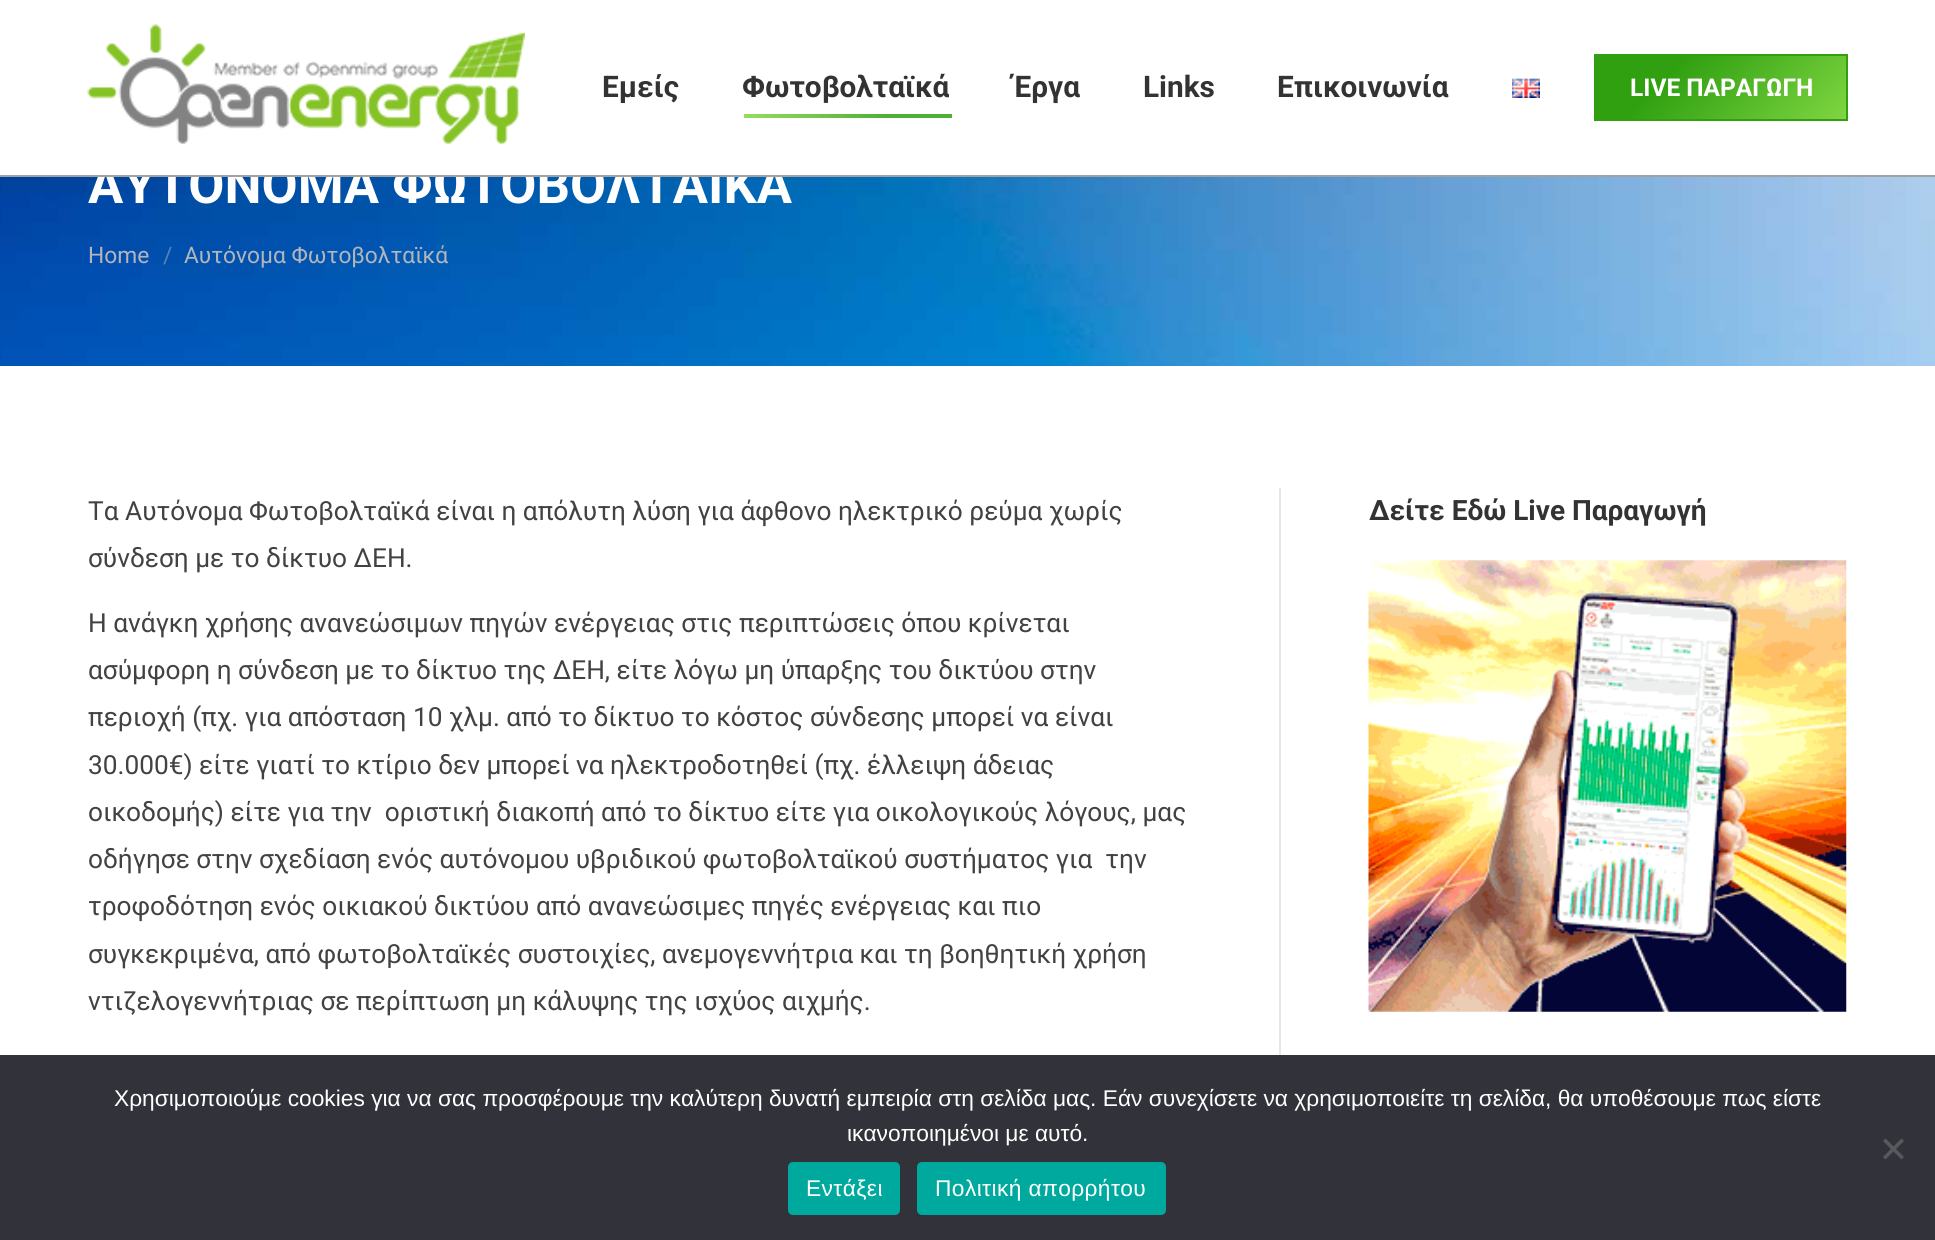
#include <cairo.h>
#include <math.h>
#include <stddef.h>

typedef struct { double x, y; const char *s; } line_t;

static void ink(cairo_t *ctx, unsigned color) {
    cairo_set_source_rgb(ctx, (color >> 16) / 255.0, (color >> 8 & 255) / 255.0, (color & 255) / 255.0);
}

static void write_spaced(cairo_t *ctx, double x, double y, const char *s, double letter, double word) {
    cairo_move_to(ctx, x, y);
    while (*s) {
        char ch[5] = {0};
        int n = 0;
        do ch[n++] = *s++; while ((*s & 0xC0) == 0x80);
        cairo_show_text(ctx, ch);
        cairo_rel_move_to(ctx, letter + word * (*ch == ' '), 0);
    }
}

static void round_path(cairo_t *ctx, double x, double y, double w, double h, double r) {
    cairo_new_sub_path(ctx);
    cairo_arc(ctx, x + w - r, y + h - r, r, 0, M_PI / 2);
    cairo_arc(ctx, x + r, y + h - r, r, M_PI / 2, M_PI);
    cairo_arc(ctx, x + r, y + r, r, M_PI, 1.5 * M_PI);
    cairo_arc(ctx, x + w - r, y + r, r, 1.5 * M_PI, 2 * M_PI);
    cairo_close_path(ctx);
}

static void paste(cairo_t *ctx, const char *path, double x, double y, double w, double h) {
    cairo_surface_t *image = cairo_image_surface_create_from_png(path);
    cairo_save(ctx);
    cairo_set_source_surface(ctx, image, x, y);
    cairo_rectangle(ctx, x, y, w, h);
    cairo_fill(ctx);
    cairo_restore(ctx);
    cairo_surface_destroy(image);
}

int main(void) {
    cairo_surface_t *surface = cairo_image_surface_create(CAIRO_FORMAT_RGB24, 1935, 1240);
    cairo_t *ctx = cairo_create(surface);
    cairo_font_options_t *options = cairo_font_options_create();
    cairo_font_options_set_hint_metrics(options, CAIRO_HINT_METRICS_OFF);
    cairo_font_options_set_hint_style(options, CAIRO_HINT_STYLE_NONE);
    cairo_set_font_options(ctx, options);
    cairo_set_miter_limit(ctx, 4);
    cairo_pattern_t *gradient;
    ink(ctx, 0xFFFFFF);
    cairo_paint(ctx);
    paste(ctx, "media/3.png", 0, 177, 1935, 189);
    cairo_select_font_face(ctx, "Roboto", CAIRO_FONT_SLANT_NORMAL, CAIRO_FONT_WEIGHT_BOLD);
    cairo_set_font_size(ctx, 52.5);
    ink(ctx, 0xFFFFFF);
    cairo_move_to(ctx, 88, 203);
    cairo_show_text(ctx, "ΑΥΤΟΝΟΜΑ ΦΩΤΟΒΟΛΤΑΪΚΑ");
    ink(ctx, 0xA2A2A2);
    cairo_rectangle(ctx, 0, 175, 1935, 2);
    cairo_fill(ctx);
    paste(ctx, "media/1.png", 87, 24, 438, 120);
    cairo_set_font_size(ctx, 29.75);
    ink(ctx, 0x333333);
    cairo_move_to(ctx, 602, 97);
    cairo_show_text(ctx, "Εμείς");
    cairo_move_to(ctx, 742, 97);
    cairo_show_text(ctx, "Φωτοβολταϊκά");
    gradient = cairo_pattern_create_linear(952, 116, 744, 116);
    cairo_pattern_add_color_stop_rgba(gradient, 0.3, 0.31, 0.682, 0.208, 1);
    cairo_pattern_add_color_stop_rgba(gradient, 1, 0.58, 0.867, 0.369, 1);
    cairo_set_source(ctx, gradient);
    cairo_pattern_destroy(gradient);
    cairo_rectangle(ctx, 744, 114, 208, 4);
    cairo_fill(ctx);
    ink(ctx, 0x333333);
    {
        static const line_t items[] = {
            {1013, 97, "Έργα"},
            {1143, 97, "Links"},
            {1277, 97, "Επικοινωνία"},
        };
        for (size_t i = 0; i < sizeof items / sizeof *items; i++) {
            cairo_move_to(ctx, items[i].x, items[i].y);
            cairo_show_text(ctx, items[i].s);
        }
    }
    paste(ctx, "media/2.png", 1512, 78, 28, 20);
    gradient = cairo_pattern_create_linear(1641, 7.4, 1801, 168);
    cairo_pattern_add_color_stop_rgba(gradient, 0.3, 0.188, 0.627, 0.067, 1);
    cairo_pattern_add_color_stop_rgba(gradient, 1, 0.506, 0.843, 0.259, 1);
    cairo_set_source(ctx, gradient);
    cairo_pattern_destroy(gradient);
    cairo_rectangle(ctx, 1596, 56, 250, 63);
    cairo_fill(ctx);
    cairo_rectangle(ctx, 1595, 55, 252, 65);
    ink(ctx, 0x30A011);
    cairo_stroke(ctx);
    cairo_set_font_size(ctx, 24.5);
    ink(ctx, 0xFFFFFF);
    cairo_move_to(ctx, 1630, 96);
    cairo_show_text(ctx, "LIVE ΠΑΡΑΓΩΓΗ");
    cairo_select_font_face(ctx, "Roboto", CAIRO_FONT_SLANT_NORMAL, CAIRO_FONT_WEIGHT_NORMAL);
    cairo_set_font_size(ctx, 22.75);
    ink(ctx, 0xB4B5BB);
    cairo_move_to(ctx, 88, 263);
    cairo_show_text(ctx, "Home");
    ink(ctx, 0x5A82B4);
    cairo_move_to(ctx, 163, 263);
    cairo_show_text(ctx, "/");
    ink(ctx, 0xB4B5BB);
    cairo_move_to(ctx, 184, 263);
    cairo_show_text(ctx, "Αυτόνομα Φωτοβολταϊκά");
    cairo_set_font_size(ctx, 26.25);
    ink(ctx, 0x424242);
    {
        static const line_t items[] = {
            {88, 520, "Τα Αυτόνομα Φωτοβολταϊκά είναι η απόλυτη λύση για άφθονο ηλεκτρικό ρεύμα χωρίς"},
            {88, 567, "σύνδεση με το δίκτυο ΔΕΗ."},
            {88, 632, "Η ανάγκη χρήσης ανανεώσιμων πηγών ενέργειας στις περιπτώσεις όπου κρίνεται"},
            {88, 679, "ασύμφορη η σύνδεση με το δίκτυο της ΔΕΗ, είτε λόγω μη ύπαρξης του δικτύου στην"},
            {88, 726, "περιοχή (πχ. για απόσταση 10 χλμ. από το δίκτυο το κόστος σύνδεσης μπορεί να είναι"},
            {88, 774, "30.000€) είτε γιατί το κτίριο δεν μπορεί να ηλεκτροδοτηθεί (πχ. έλλειψη άδειας"},
            {88, 821, "οικοδομής) είτε για την  οριστική διακοπή από το δίκτυο είτε για οικολογικούς λόγους, μας"},
            {88, 868, "οδήγησε στην σχεδίαση ενός αυτόνομου υβριδικού φωτοβολταϊκού συστήματος για  την"},
            {88, 915, "τροφοδότηση ενός οικιακού δικτύου από ανανεώσιμες πηγές ενέργειας και πιο"},
            {88, 963, "συγκεκριμένα, από φωτοβολταϊκές συστοιχίες, ανεμογεννήτρια και τη βοηθητική χρήση"},
            {88, 1010, "ντιζελογεννήτριας σε περίπτωση μη κάλυψης της ισχύος αιχμής."},
        };
        for (size_t i = 0; i < sizeof items / sizeof *items; i++) {
            cairo_move_to(ctx, items[i].x, items[i].y);
            cairo_show_text(ctx, items[i].s);
        }
    }
    ink(ctx, 0xE7E7E7);
    cairo_rectangle(ctx, 1279, 488, 2, 567);
    cairo_fill(ctx);
    cairo_select_font_face(ctx, "Roboto", CAIRO_FONT_SLANT_NORMAL, CAIRO_FONT_WEIGHT_BOLD);
    cairo_set_font_size(ctx, 28);
    ink(ctx, 0x333333);
    cairo_move_to(ctx, 1369, 520);
    cairo_show_text(ctx, "Δείτε Εδώ Live Παραγωγή");
    paste(ctx, "media/4.png", 1368, 560, 479, 452);
    ink(ctx, 0x32323A);
    cairo_rectangle(ctx, 0, 1055, 1935, 185);
    cairo_fill(ctx);
    cairo_select_font_face(ctx, "Liberation Sans", CAIRO_FONT_SLANT_NORMAL, CAIRO_FONT_WEIGHT_NORMAL);
    cairo_set_font_size(ctx, 22.75);
    ink(ctx, 0xFFFFFF);
    cairo_move_to(ctx, 114, 1106);
    cairo_show_text(ctx, "Χρησιμοποιούμε cookies για να σας προσφέρουμε την καλύτερη δυνατή εμπειρία στη σελίδα μας. Εάν συνεχίσετε να χρησιμοποιείτε τη σελίδα, θα υποθέσουμε πως είστε");
    cairo_move_to(ctx, 847, 1141);
    cairo_show_text(ctx, "ικανοποιημένοι με αυτό.");
    ink(ctx, 0x59595D);
    cairo_new_path(ctx);
    cairo_move_to(ctx, 1901.5, 1138.5);
    cairo_line_to(ctx, 1904, 1141);
    cairo_line_to(ctx, 1885.5, 1159.5);
    cairo_line_to(ctx, 1883, 1157);
    cairo_close_path(ctx);
    cairo_fill(ctx);
    cairo_new_path(ctx);
    cairo_move_to(ctx, 1883, 1141);
    cairo_line_to(ctx, 1885.5, 1138.5);
    cairo_line_to(ctx, 1904, 1157);
    cairo_line_to(ctx, 1901.5, 1159.5);
    cairo_close_path(ctx);
    cairo_fill(ctx);
    ink(ctx, 0x00A99D);
    round_path(ctx, 788, 1162, 112, 53, 5);
    cairo_fill(ctx);
    ink(ctx, 0xFFFFFF);
    write_spaced(ctx, 806, 1196, "Εντάξει", 0.4, 0);
    ink(ctx, 0x00A99D);
    round_path(ctx, 917, 1162, 249, 53, 5);
    cairo_fill(ctx);
    ink(ctx, 0xFFFFFF);
    write_spaced(ctx, 935, 1196, "Πολιτική απορρήτου", 0.4, 0);
    cairo_surface_write_to_png(surface, "image.png");
    cairo_font_options_destroy(options);
    cairo_destroy(ctx);
    cairo_surface_destroy(surface);
    return 0;
}
